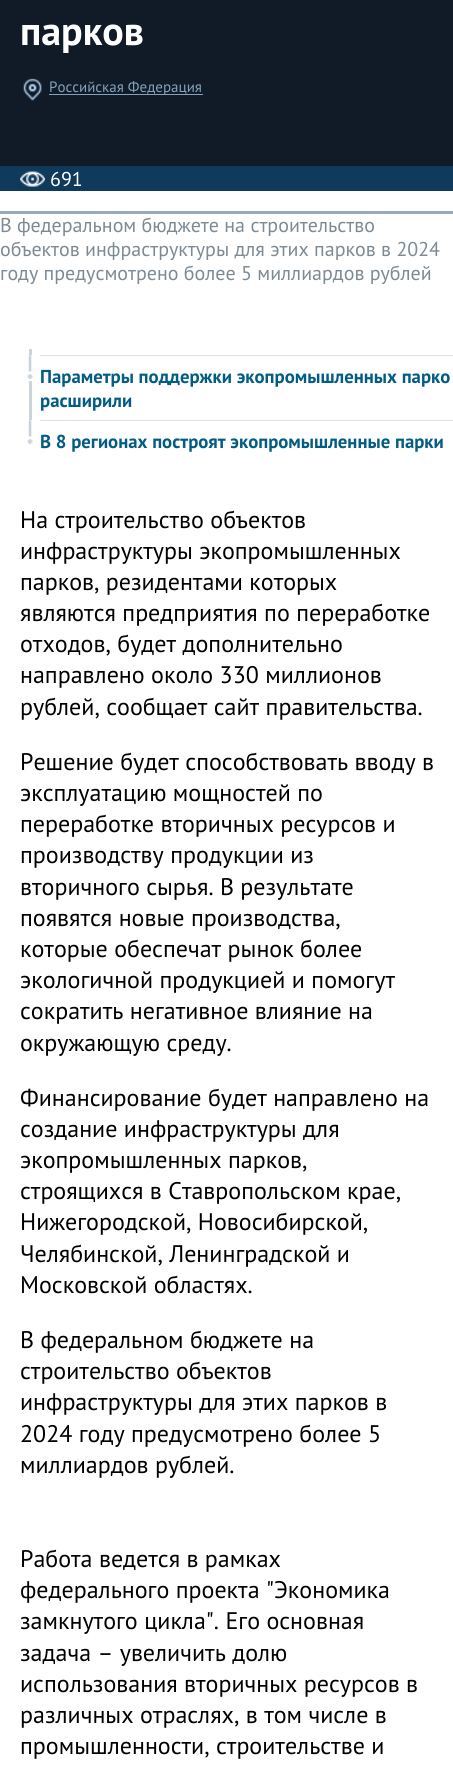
#include <cairo.h>
#include <math.h>
#include <stddef.h>

typedef struct { double x, y; const char *s; } line_t;

static void ink(cairo_t *ctx, unsigned color) {
    cairo_set_source_rgb(ctx, (color >> 16) / 255.0, (color >> 8 & 255) / 255.0, (color & 255) / 255.0);
}

static void paste(cairo_t *ctx, const char *path, double x, double y, double w, double h) {
    cairo_surface_t *image = cairo_image_surface_create_from_png(path);
    cairo_save(ctx);
    cairo_set_source_surface(ctx, image, x, y);
    cairo_rectangle(ctx, x, y, w, h);
    cairo_fill(ctx);
    cairo_restore(ctx);
    cairo_surface_destroy(image);
}

int main(void) {
    cairo_surface_t *surface = cairo_image_surface_create(CAIRO_FORMAT_RGB24, 453, 1772);
    cairo_t *ctx = cairo_create(surface);
    cairo_font_options_t *options = cairo_font_options_create();
    cairo_font_options_set_hint_metrics(options, CAIRO_HINT_METRICS_OFF);
    cairo_font_options_set_hint_style(options, CAIRO_HINT_STYLE_NONE);
    cairo_set_font_options(ctx, options);
    cairo_set_miter_limit(ctx, 4);
    ink(ctx, 0x111B27);
    cairo_paint(ctx);
    cairo_select_font_face(ctx, "PT Sans", CAIRO_FONT_SLANT_NORMAL, CAIRO_FONT_WEIGHT_BOLD);
    cairo_set_font_size(ctx, 40);
    ink(ctx, 0xFFFFFF);
    cairo_move_to(ctx, 20, 45);
    cairo_show_text(ctx, "парков");
    paste(ctx, "media/1.png", 23, 78, 19, 23);
    ink(ctx, 0x83A1BD);
    cairo_rectangle(ctx, 49, 94, 154, 1);
    cairo_fill(ctx);
    cairo_select_font_face(ctx, "PT Sans", CAIRO_FONT_SLANT_NORMAL, CAIRO_FONT_WEIGHT_NORMAL);
    cairo_set_font_size(ctx, 15);
    cairo_move_to(ctx, 49, 92);
    cairo_show_text(ctx, "Российская Федерация");
    ink(ctx, 0xFFFFFF);
    cairo_rectangle(ctx, 0, 191, 453, 1581);
    cairo_fill(ctx);
    ink(ctx, 0x0F3A5C);
    cairo_rectangle(ctx, 0, 166, 453, 25);
    cairo_fill(ctx);
    paste(ctx, "media/2.png", 20, 171, 25, 16);
    cairo_set_font_size(ctx, 20);
    ink(ctx, 0xFFFFFF);
    cairo_move_to(ctx, 50, 186);
    cairo_show_text(ctx, "691");
    ink(ctx, 0x99AABA);
    cairo_rectangle(ctx, 0, 211, 453, 3);
    cairo_fill(ctx);
    ink(ctx, 0x7C8A95);
    {
        static const line_t items[] = {
            {0, 232, "В федеральном бюджете на строительство"},
            {0, 256, "объектов инфраструктуры для этих парков в 2024"},
            {0, 280, "году предусмотрено более 5 миллиардов рублей"},
        };
        for (size_t i = 0; i < sizeof items / sizeof *items; i++) {
            cairo_move_to(ctx, items[i].x, items[i].y);
            cairo_show_text(ctx, items[i].s);
        }
    }
    ink(ctx, 0xCBD4DD);
    cairo_rectangle(ctx, 29, 349, 3, 6);
    cairo_fill(ctx);
    paste(ctx, "media/3.png", 27, 355, 6, 25);
    cairo_rectangle(ctx, 29, 381, 3, 39);
    cairo_fill(ctx);
    ink(ctx, 0xE1E0E5);
    cairo_rectangle(ctx, 40, 355, 413, 1);
    cairo_fill(ctx);
    cairo_select_font_face(ctx, "PT Sans", CAIRO_FONT_SLANT_NORMAL, CAIRO_FONT_WEIGHT_BOLD);
    cairo_set_font_size(ctx, 18.75);
    ink(ctx, 0x035C84);
    cairo_move_to(ctx, 40, 383);
    cairo_show_text(ctx, "Параметры поддержки экопромышленных парко");
    cairo_move_to(ctx, 40, 407);
    cairo_show_text(ctx, "расширили");
    paste(ctx, "media/4.png", 27, 420, 6, 25);
    ink(ctx, 0xE1E0E5);
    cairo_rectangle(ctx, 40, 420, 413, 1);
    cairo_fill(ctx);
    ink(ctx, 0x035C84);
    cairo_move_to(ctx, 40, 448);
    cairo_show_text(ctx, "В 8 регионах построят экопромышленные парки");
    cairo_select_font_face(ctx, "PT Sans", CAIRO_FONT_SLANT_NORMAL, CAIRO_FONT_WEIGHT_NORMAL);
    cairo_set_font_size(ctx, 24);
    ink(ctx, 0x000000);
    {
        static const line_t items[] = {
            {20, 528, "На строительство объектов"},
            {20, 559, "инфраструктуры экопромышленных"},
            {20, 590, "парков, резидентами которых"},
            {20, 621, "являются предприятия по переработке"},
            {20, 652, "отходов, будет дополнительно"},
            {20, 683, "направлено около 330 миллионов"},
            {20, 715, "рублей, сообщает сайт правительства."},
            {20, 770, "Решение будет способствовать вводу в"},
            {20, 801, "эксплуатацию мощностей по"},
            {20, 832, "переработке вторичных ресурсов и"},
            {20, 863, "производству продукции из"},
            {20, 895, "вторичного сырья. В результате"},
            {20, 926, "появятся новые производства,"},
            {20, 957, "которые обеспечат рынок более"},
            {20, 988, "экологичной продукцией и помогут"},
            {20, 1019, "сократить негативное влияние на"},
            {20, 1051, "окружающую среду."},
            {20, 1106, "Финансирование будет направлено на"},
            {20, 1137, "создание инфраструктуры для"},
            {20, 1168, "экопромышленных парков,"},
            {20, 1199, "строящихся в Ставропольском крае,"},
            {20, 1230, "Нижегородской, Новосибирской,"},
            {20, 1262, "Челябинской, Ленинградской и"},
            {20, 1293, "Московской областях."},
            {20, 1348, "В федеральном бюджете на"},
            {20, 1379, "строительство объектов"},
            {20, 1410, "инфраструктуры для этих парков в"},
            {20, 1442, "2024 году предусмотрено более 5"},
            {20, 1473, "миллиардов рублей."},
            {20, 1567, "Работа ведется в рамках"},
            {20, 1598, "федерального проекта \"Экономика"},
            {20, 1629, "замкнутого цикла\". Его основная"},
            {20, 1661, "задача – увеличить долю"},
            {20, 1692, "использования вторичных ресурсов в"},
            {20, 1723, "различных отраслях, в том числе в"},
            {20, 1754, "промышленности, строительстве и"},
        };
        for (size_t i = 0; i < sizeof items / sizeof *items; i++) {
            cairo_move_to(ctx, items[i].x, items[i].y);
            cairo_show_text(ctx, items[i].s);
        }
    }
    cairo_surface_write_to_png(surface, "image.png");
    cairo_font_options_destroy(options);
    cairo_destroy(ctx);
    cairo_surface_destroy(surface);
    return 0;
}
